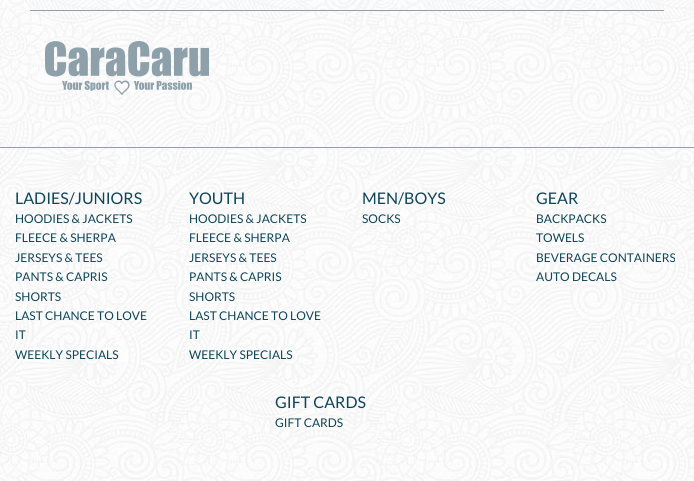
#include <cairo.h>
#include <math.h>
#include <stddef.h>

typedef struct { double x, y; const char *s; } line_t;

static void ink(cairo_t *ctx, unsigned color) {
    cairo_set_source_rgb(ctx, (color >> 16) / 255.0, (color >> 8 & 255) / 255.0, (color & 255) / 255.0);
}

static void paste(cairo_t *ctx, const char *path, double x, double y, double w, double h) {
    cairo_surface_t *image = cairo_image_surface_create_from_png(path);
    cairo_save(ctx);
    cairo_set_source_surface(ctx, image, x, y);
    cairo_rectangle(ctx, x, y, w, h);
    cairo_fill(ctx);
    cairo_restore(ctx);
    cairo_surface_destroy(image);
}

int main(void) {
    cairo_surface_t *surface = cairo_image_surface_create(CAIRO_FORMAT_RGB24, 694, 481);
    cairo_t *ctx = cairo_create(surface);
    cairo_font_options_t *options = cairo_font_options_create();
    cairo_font_options_set_hint_metrics(options, CAIRO_HINT_METRICS_OFF);
    cairo_font_options_set_hint_style(options, CAIRO_HINT_STYLE_NONE);
    cairo_set_font_options(ctx, options);
    cairo_set_miter_limit(ctx, 4);
    ink(ctx, 0xFFFFFF);
    cairo_paint(ctx);
    paste(ctx, "media/1.png", 0, 0, 694, 481);
    ink(ctx, 0x8EA1AB);
    cairo_rectangle(ctx, 0, 147, 694, 1);
    cairo_fill(ctx);
    cairo_rectangle(ctx, 30, 10, 634, 1);
    cairo_fill(ctx);
    paste(ctx, "media/2.png", 45, 41, 164, 54);
    cairo_select_font_face(ctx, "Lato", CAIRO_FONT_SLANT_NORMAL, CAIRO_FONT_WEIGHT_NORMAL);
    cairo_set_font_size(ctx, 16);
    ink(ctx, 0x0E4557);
    cairo_move_to(ctx, 15, 204);
    cairo_show_text(ctx, "LADIES/JUNIORS");
    cairo_set_font_size(ctx, 12);
    {
        static const line_t items[] = {
            {15, 223, "HOODIES & JACKETS"},
            {15, 242, "FLEECE & SHERPA"},
            {15, 262, "JERSEYS & TEES"},
            {15, 281, "PANTS & CAPRIS"},
            {15, 301, "SHORTS"},
            {15, 320, "LAST CHANCE TO LOVE"},
            {15, 339, "IT"},
            {15, 359, "WEEKLY SPECIALS"},
        };
        for (size_t i = 0; i < sizeof items / sizeof *items; i++) {
            cairo_move_to(ctx, items[i].x, items[i].y);
            cairo_show_text(ctx, items[i].s);
        }
    }
    cairo_set_font_size(ctx, 16);
    cairo_move_to(ctx, 189, 204);
    cairo_show_text(ctx, "YOUTH");
    cairo_set_font_size(ctx, 12);
    {
        static const line_t items[] = {
            {189, 223, "HOODIES & JACKETS"},
            {189, 242, "FLEECE & SHERPA"},
            {189, 262, "JERSEYS & TEES"},
            {189, 281, "PANTS & CAPRIS"},
            {189, 301, "SHORTS"},
            {189, 320, "LAST CHANCE TO LOVE"},
            {189, 339, "IT"},
            {189, 359, "WEEKLY SPECIALS"},
        };
        for (size_t i = 0; i < sizeof items / sizeof *items; i++) {
            cairo_move_to(ctx, items[i].x, items[i].y);
            cairo_show_text(ctx, items[i].s);
        }
    }
    cairo_set_font_size(ctx, 16);
    cairo_move_to(ctx, 362, 204);
    cairo_show_text(ctx, "MEN/BOYS");
    cairo_set_font_size(ctx, 12);
    cairo_move_to(ctx, 362, 223);
    cairo_show_text(ctx, "SOCKS");
    cairo_set_font_size(ctx, 16);
    cairo_move_to(ctx, 536, 204);
    cairo_show_text(ctx, "GEAR");
    cairo_set_font_size(ctx, 12);
    {
        static const line_t items[] = {
            {536, 223, "BACKPACKS"},
            {536, 242, "TOWELS"},
            {536, 262, "BEVERAGE CONTAINERS"},
            {536, 281, "AUTO DECALS"},
        };
        for (size_t i = 0; i < sizeof items / sizeof *items; i++) {
            cairo_move_to(ctx, items[i].x, items[i].y);
            cairo_show_text(ctx, items[i].s);
        }
    }
    cairo_set_font_size(ctx, 16);
    cairo_move_to(ctx, 275, 408);
    cairo_show_text(ctx, "GIFT CARDS");
    cairo_set_font_size(ctx, 12);
    cairo_move_to(ctx, 275, 427);
    cairo_show_text(ctx, "GIFT CARDS");
    cairo_surface_write_to_png(surface, "image.png");
    cairo_font_options_destroy(options);
    cairo_destroy(ctx);
    cairo_surface_destroy(surface);
    return 0;
}
